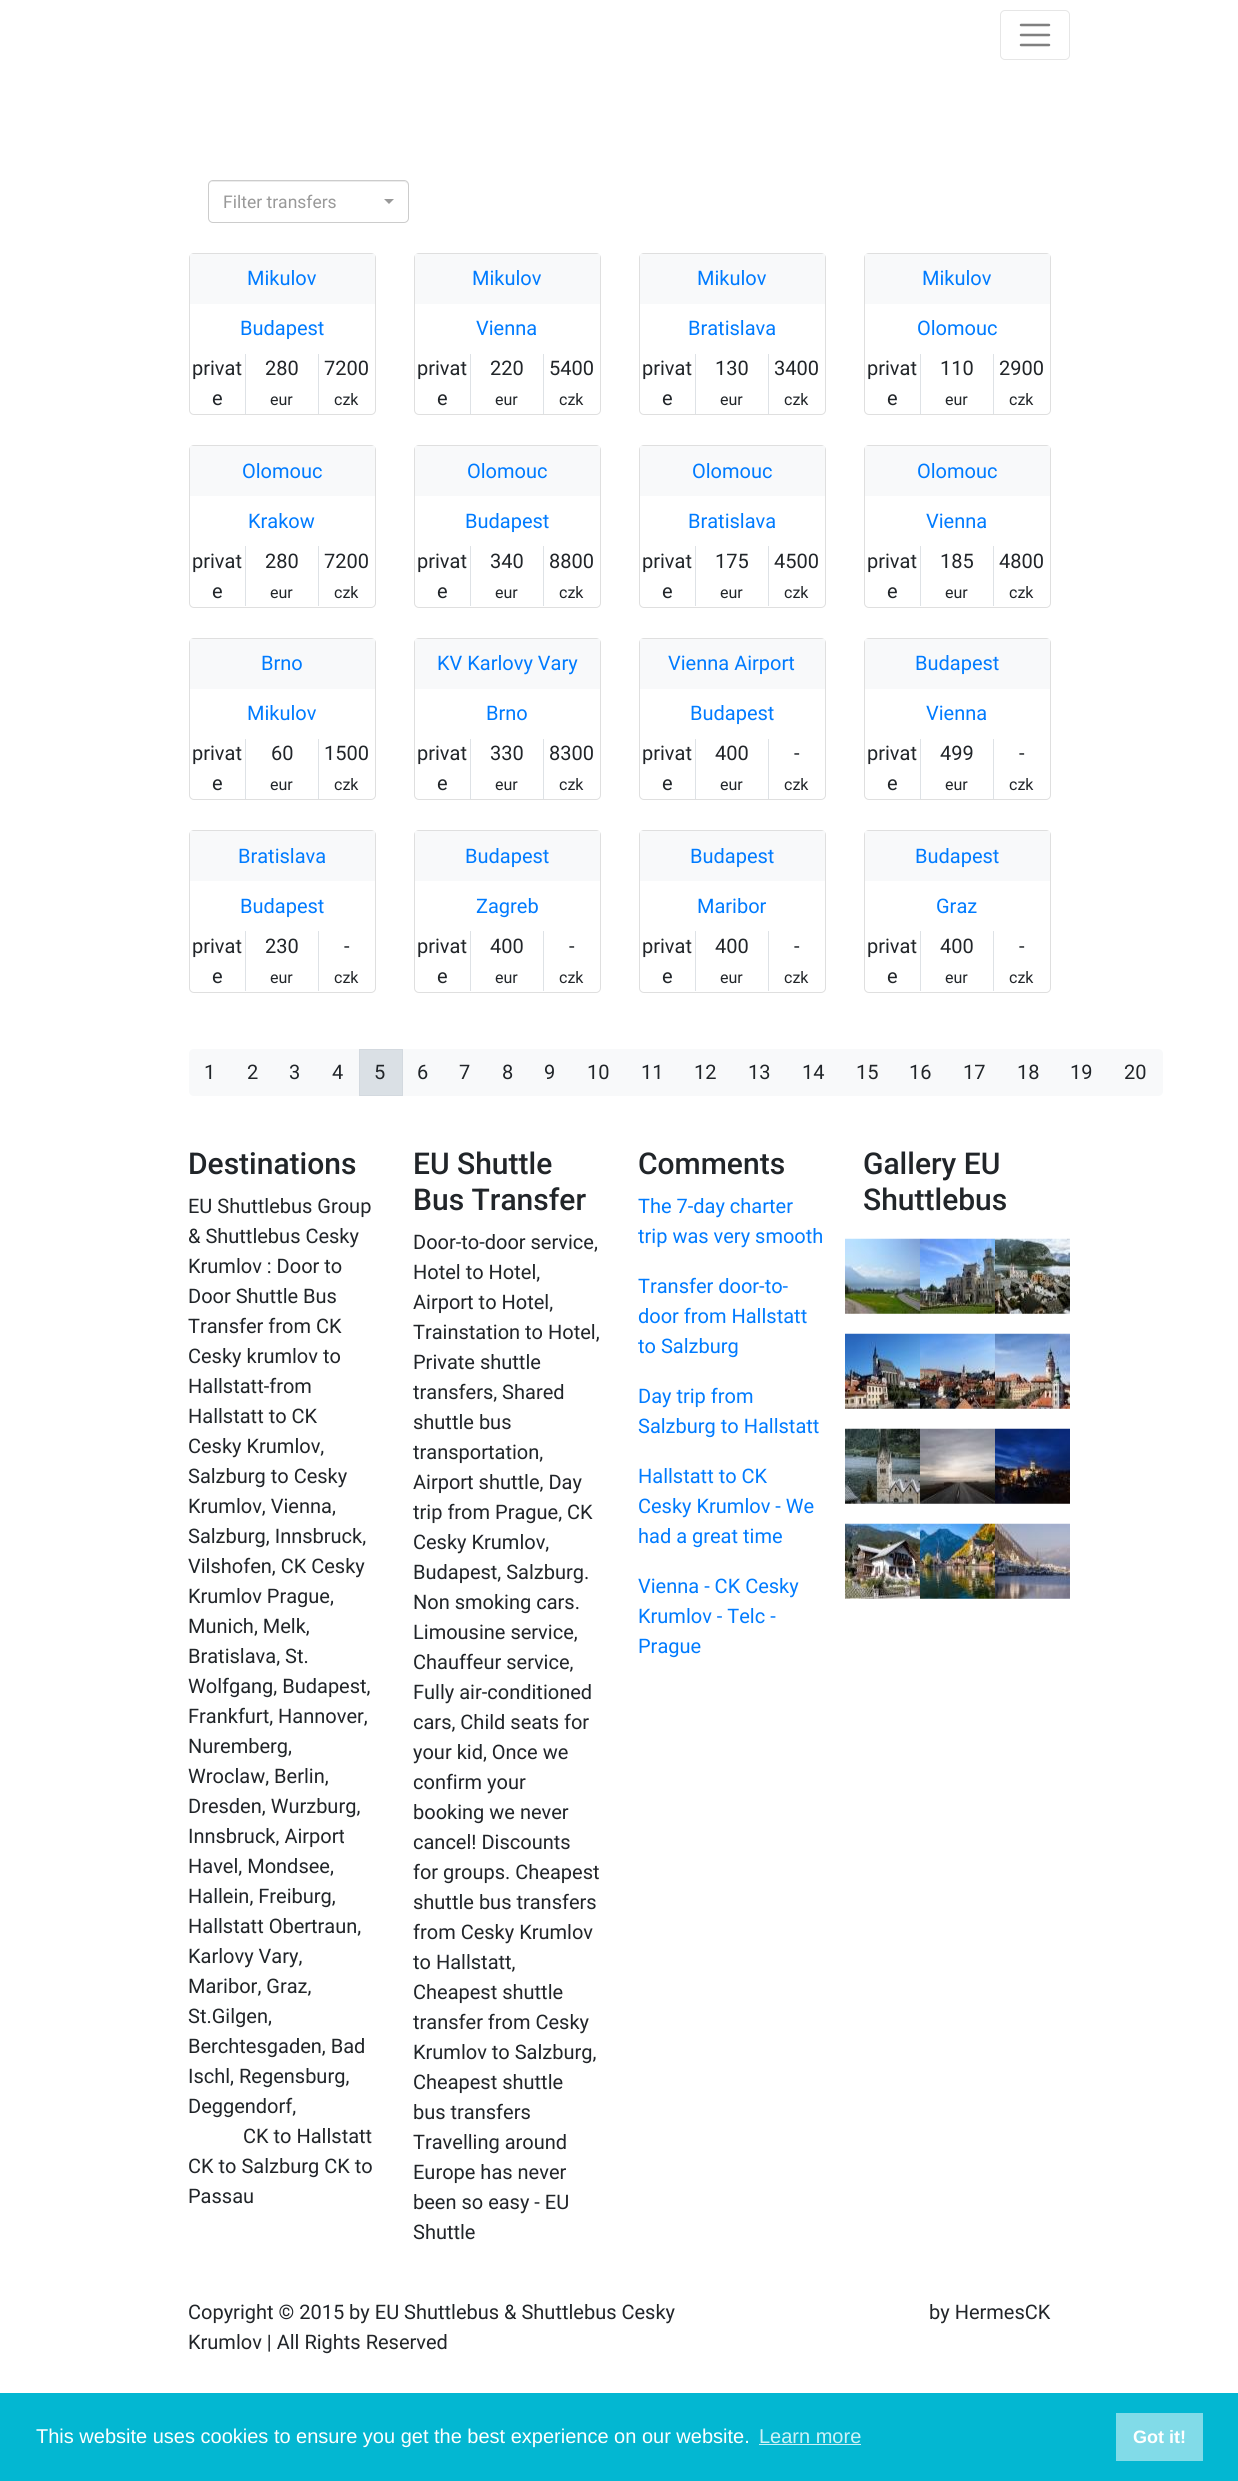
#include <cairo.h>
#include <math.h>
#include <stddef.h>

typedef struct { double x, y; const char *s; } line_t;

static void ink(cairo_t *ctx, unsigned color) {
    cairo_set_source_rgb(ctx, (color >> 16) / 255.0, (color >> 8 & 255) / 255.0, (color & 255) / 255.0);
}

static void round_path(cairo_t *ctx, double x, double y, double w, double h, double r) {
    cairo_new_sub_path(ctx);
    cairo_arc(ctx, x + w - r, y + h - r, r, 0, M_PI / 2);
    cairo_arc(ctx, x + r, y + h - r, r, M_PI / 2, M_PI);
    cairo_arc(ctx, x + r, y + r, r, M_PI, 1.5 * M_PI);
    cairo_arc(ctx, x + w - r, y + r, r, 1.5 * M_PI, 2 * M_PI);
    cairo_close_path(ctx);
}

static void paste(cairo_t *ctx, const char *path, double x, double y, double w, double h) {
    cairo_surface_t *image = cairo_image_surface_create_from_png(path);
    cairo_save(ctx);
    cairo_set_source_surface(ctx, image, x, y);
    cairo_rectangle(ctx, x, y, w, h);
    cairo_fill(ctx);
    cairo_restore(ctx);
    cairo_surface_destroy(image);
}

int main(void) {
    cairo_surface_t *surface = cairo_image_surface_create(CAIRO_FORMAT_RGB24, 1238, 2481);
    cairo_t *ctx = cairo_create(surface);
    cairo_font_options_t *options = cairo_font_options_create();
    cairo_font_options_set_hint_metrics(options, CAIRO_HINT_METRICS_OFF);
    cairo_font_options_set_hint_style(options, CAIRO_HINT_STYLE_NONE);
    cairo_set_font_options(ctx, options);
    cairo_set_miter_limit(ctx, 4);
    ink(ctx, 0xFFFFFF);
    cairo_paint(ctx);
    round_path(ctx, 1000.5, 10.5, 69, 49, 4.5);
    ink(ctx, 0xE6E6E6);
    cairo_set_line_width(ctx, 1);
    cairo_stroke(ctx);
    cairo_new_path(ctx);
    cairo_move_to(ctx, 1021, 25);
    cairo_line_to(ctx, 1049, 25);
    cairo_move_to(ctx, 1021, 35);
    cairo_line_to(ctx, 1049, 35);
    cairo_move_to(ctx, 1021, 45);
    cairo_line_to(ctx, 1049, 45);
    ink(ctx, 0x808080);
    cairo_set_line_width(ctx, 2.5);
    cairo_set_line_cap(ctx, CAIRO_LINE_CAP_ROUND);
    cairo_stroke(ctx);
    ink(ctx, 0xECECEC);
    cairo_new_path(ctx);
    cairo_move_to(ctx, 212, 182);
    cairo_line_to(ctx, 404, 182);
    cairo_curve_to(ctx, 406, 182, 408, 184, 408, 186);
    cairo_line_to(ctx, 408, 185);
    cairo_curve_to(ctx, 408, 183, 406, 181, 404, 181);
    cairo_line_to(ctx, 213, 181);
    cairo_curve_to(ctx, 211, 181, 209, 183, 209, 185);
    cairo_line_to(ctx, 209, 186);
    cairo_curve_to(ctx, 209, 184, 210, 182, 212, 182);
    cairo_close_path(ctx);
    cairo_fill(ctx);
    round_path(ctx, 208.5, 180.5, 200, 42, 4.5);
    ink(ctx, 0xCCCCCC);
    cairo_set_line_width(ctx, 1);
    cairo_set_line_cap(ctx, CAIRO_LINE_CAP_BUTT);
    cairo_stroke(ctx);
    cairo_select_font_face(ctx, "Roboto", CAIRO_FONT_SLANT_NORMAL, CAIRO_FONT_WEIGHT_NORMAL);
    cairo_set_font_size(ctx, 17.5);
    ink(ctx, 0x999999);
    cairo_move_to(ctx, 223, 208);
    cairo_show_text(ctx, "Filter transfers");
    cairo_new_path(ctx);
    cairo_move_to(ctx, 384, 199);
    cairo_line_to(ctx, 394, 199);
    cairo_line_to(ctx, 389, 204);
    cairo_close_path(ctx);
    cairo_fill(ctx);
    round_path(ctx, 189.5, 253.5, 186, 161, 4.5);
    ink(ctx, 0xDFDFDF);
    cairo_stroke(ctx);
    ink(ctx, 0xF8F9FA);
    cairo_rectangle(ctx, 190, 254, 185, 50);
    cairo_fill(ctx);
    cairo_set_font_size(ctx, 20);
    ink(ctx, 0x007BFF);
    cairo_move_to(ctx, 247, 285);
    cairo_show_text(ctx, "Mikulov");
    cairo_move_to(ctx, 240, 335);
    cairo_show_text(ctx, "Budapest");
    ink(ctx, 0x212529);
    cairo_move_to(ctx, 192, 375);
    cairo_show_text(ctx, "privat");
    cairo_move_to(ctx, 212, 405);
    cairo_show_text(ctx, "e");
    ink(ctx, 0xDEE2E6);
    cairo_rectangle(ctx, 318, 354, 1, 60);
    cairo_fill(ctx);
    cairo_rectangle(ctx, 245, 354, 1, 60);
    cairo_fill(ctx);
    ink(ctx, 0x212529);
    cairo_move_to(ctx, 265, 375);
    cairo_show_text(ctx, "280");
    cairo_set_font_size(ctx, 16);
    cairo_move_to(ctx, 270, 405);
    cairo_show_text(ctx, "eur");
    cairo_set_font_size(ctx, 20);
    cairo_move_to(ctx, 324, 375);
    cairo_show_text(ctx, "7200");
    cairo_set_font_size(ctx, 16);
    cairo_move_to(ctx, 334, 405);
    cairo_show_text(ctx, "czk");
    round_path(ctx, 414.5, 253.5, 186, 161, 4.5);
    ink(ctx, 0xDFDFDF);
    cairo_stroke(ctx);
    ink(ctx, 0xF8F9FA);
    cairo_rectangle(ctx, 415, 254, 185, 50);
    cairo_fill(ctx);
    cairo_set_font_size(ctx, 20);
    ink(ctx, 0x007BFF);
    cairo_move_to(ctx, 472, 285);
    cairo_show_text(ctx, "Mikulov");
    cairo_move_to(ctx, 476, 335);
    cairo_show_text(ctx, "Vienna");
    ink(ctx, 0x212529);
    cairo_move_to(ctx, 417, 375);
    cairo_show_text(ctx, "privat");
    cairo_move_to(ctx, 437, 405);
    cairo_show_text(ctx, "e");
    ink(ctx, 0xDEE2E6);
    cairo_rectangle(ctx, 543, 354, 1, 60);
    cairo_fill(ctx);
    cairo_rectangle(ctx, 470, 354, 1, 60);
    cairo_fill(ctx);
    ink(ctx, 0x212529);
    cairo_move_to(ctx, 490, 375);
    cairo_show_text(ctx, "220");
    cairo_set_font_size(ctx, 16);
    cairo_move_to(ctx, 495, 405);
    cairo_show_text(ctx, "eur");
    cairo_set_font_size(ctx, 20);
    cairo_move_to(ctx, 549, 375);
    cairo_show_text(ctx, "5400");
    cairo_set_font_size(ctx, 16);
    cairo_move_to(ctx, 559, 405);
    cairo_show_text(ctx, "czk");
    round_path(ctx, 639.5, 253.5, 186, 161, 4.5);
    ink(ctx, 0xDFDFDF);
    cairo_stroke(ctx);
    ink(ctx, 0xF8F9FA);
    cairo_rectangle(ctx, 640, 254, 185, 50);
    cairo_fill(ctx);
    cairo_set_font_size(ctx, 20);
    ink(ctx, 0x007BFF);
    cairo_move_to(ctx, 697, 285);
    cairo_show_text(ctx, "Mikulov");
    cairo_move_to(ctx, 688, 335);
    cairo_show_text(ctx, "Bratislava");
    ink(ctx, 0x212529);
    cairo_move_to(ctx, 642, 375);
    cairo_show_text(ctx, "privat");
    cairo_move_to(ctx, 662, 405);
    cairo_show_text(ctx, "e");
    ink(ctx, 0xDEE2E6);
    cairo_rectangle(ctx, 768, 354, 1, 60);
    cairo_fill(ctx);
    cairo_rectangle(ctx, 695, 354, 1, 60);
    cairo_fill(ctx);
    ink(ctx, 0x212529);
    cairo_move_to(ctx, 715, 375);
    cairo_show_text(ctx, "130");
    cairo_set_font_size(ctx, 16);
    cairo_move_to(ctx, 720, 405);
    cairo_show_text(ctx, "eur");
    cairo_set_font_size(ctx, 20);
    cairo_move_to(ctx, 774, 375);
    cairo_show_text(ctx, "3400");
    cairo_set_font_size(ctx, 16);
    cairo_move_to(ctx, 784, 405);
    cairo_show_text(ctx, "czk");
    round_path(ctx, 864.5, 253.5, 186, 161, 4.5);
    ink(ctx, 0xDFDFDF);
    cairo_stroke(ctx);
    ink(ctx, 0xF8F9FA);
    cairo_rectangle(ctx, 865, 254, 185, 50);
    cairo_fill(ctx);
    cairo_set_font_size(ctx, 20);
    ink(ctx, 0x007BFF);
    cairo_move_to(ctx, 922, 285);
    cairo_show_text(ctx, "Mikulov");
    cairo_move_to(ctx, 917, 335);
    cairo_show_text(ctx, "Olomouc");
    ink(ctx, 0x212529);
    cairo_move_to(ctx, 867, 375);
    cairo_show_text(ctx, "privat");
    cairo_move_to(ctx, 887, 405);
    cairo_show_text(ctx, "e");
    ink(ctx, 0xDEE2E6);
    cairo_rectangle(ctx, 993, 354, 1, 60);
    cairo_fill(ctx);
    cairo_rectangle(ctx, 920, 354, 1, 60);
    cairo_fill(ctx);
    ink(ctx, 0x212529);
    cairo_move_to(ctx, 940, 375);
    cairo_show_text(ctx, "110");
    cairo_set_font_size(ctx, 16);
    cairo_move_to(ctx, 945, 405);
    cairo_show_text(ctx, "eur");
    cairo_set_font_size(ctx, 20);
    cairo_move_to(ctx, 999, 375);
    cairo_show_text(ctx, "2900");
    cairo_set_font_size(ctx, 16);
    cairo_move_to(ctx, 1009, 405);
    cairo_show_text(ctx, "czk");
    round_path(ctx, 189.5, 445.5, 186, 162, 4.5);
    ink(ctx, 0xDFDFDF);
    cairo_stroke(ctx);
    ink(ctx, 0xF8F9FA);
    cairo_rectangle(ctx, 190, 446, 185, 50);
    cairo_fill(ctx);
    cairo_set_font_size(ctx, 20);
    ink(ctx, 0x007BFF);
    cairo_move_to(ctx, 242, 478);
    cairo_show_text(ctx, "Olomouc");
    cairo_move_to(ctx, 248, 528);
    cairo_show_text(ctx, "Krakow");
    ink(ctx, 0x212529);
    cairo_move_to(ctx, 192, 568);
    cairo_show_text(ctx, "privat");
    cairo_move_to(ctx, 212, 598);
    cairo_show_text(ctx, "e");
    ink(ctx, 0xDEE2E6);
    cairo_rectangle(ctx, 318, 546, 1, 60);
    cairo_fill(ctx);
    cairo_rectangle(ctx, 245, 546, 1, 60);
    cairo_fill(ctx);
    ink(ctx, 0x212529);
    cairo_move_to(ctx, 265, 568);
    cairo_show_text(ctx, "280");
    cairo_set_font_size(ctx, 16);
    cairo_move_to(ctx, 270, 598);
    cairo_show_text(ctx, "eur");
    cairo_set_font_size(ctx, 20);
    cairo_move_to(ctx, 324, 568);
    cairo_show_text(ctx, "7200");
    cairo_set_font_size(ctx, 16);
    cairo_move_to(ctx, 334, 598);
    cairo_show_text(ctx, "czk");
    round_path(ctx, 414.5, 445.5, 186, 162, 4.5);
    ink(ctx, 0xDFDFDF);
    cairo_stroke(ctx);
    ink(ctx, 0xF8F9FA);
    cairo_rectangle(ctx, 415, 446, 185, 50);
    cairo_fill(ctx);
    cairo_set_font_size(ctx, 20);
    ink(ctx, 0x007BFF);
    cairo_move_to(ctx, 467, 478);
    cairo_show_text(ctx, "Olomouc");
    cairo_move_to(ctx, 465, 528);
    cairo_show_text(ctx, "Budapest");
    ink(ctx, 0x212529);
    cairo_move_to(ctx, 417, 568);
    cairo_show_text(ctx, "privat");
    cairo_move_to(ctx, 437, 598);
    cairo_show_text(ctx, "e");
    ink(ctx, 0xDEE2E6);
    cairo_rectangle(ctx, 543, 546, 1, 60);
    cairo_fill(ctx);
    cairo_rectangle(ctx, 470, 546, 1, 60);
    cairo_fill(ctx);
    ink(ctx, 0x212529);
    cairo_move_to(ctx, 490, 568);
    cairo_show_text(ctx, "340");
    cairo_set_font_size(ctx, 16);
    cairo_move_to(ctx, 495, 598);
    cairo_show_text(ctx, "eur");
    cairo_set_font_size(ctx, 20);
    cairo_move_to(ctx, 549, 568);
    cairo_show_text(ctx, "8800");
    cairo_set_font_size(ctx, 16);
    cairo_move_to(ctx, 559, 598);
    cairo_show_text(ctx, "czk");
    round_path(ctx, 639.5, 445.5, 186, 162, 4.5);
    ink(ctx, 0xDFDFDF);
    cairo_stroke(ctx);
    ink(ctx, 0xF8F9FA);
    cairo_rectangle(ctx, 640, 446, 185, 50);
    cairo_fill(ctx);
    cairo_set_font_size(ctx, 20);
    ink(ctx, 0x007BFF);
    cairo_move_to(ctx, 692, 478);
    cairo_show_text(ctx, "Olomouc");
    cairo_move_to(ctx, 688, 528);
    cairo_show_text(ctx, "Bratislava");
    ink(ctx, 0x212529);
    cairo_move_to(ctx, 642, 568);
    cairo_show_text(ctx, "privat");
    cairo_move_to(ctx, 662, 598);
    cairo_show_text(ctx, "e");
    ink(ctx, 0xDEE2E6);
    cairo_rectangle(ctx, 768, 546, 1, 60);
    cairo_fill(ctx);
    cairo_rectangle(ctx, 695, 546, 1, 60);
    cairo_fill(ctx);
    ink(ctx, 0x212529);
    cairo_move_to(ctx, 715, 568);
    cairo_show_text(ctx, "175");
    cairo_set_font_size(ctx, 16);
    cairo_move_to(ctx, 720, 598);
    cairo_show_text(ctx, "eur");
    cairo_set_font_size(ctx, 20);
    cairo_move_to(ctx, 774, 568);
    cairo_show_text(ctx, "4500");
    cairo_set_font_size(ctx, 16);
    cairo_move_to(ctx, 784, 598);
    cairo_show_text(ctx, "czk");
    round_path(ctx, 864.5, 445.5, 186, 162, 4.5);
    ink(ctx, 0xDFDFDF);
    cairo_stroke(ctx);
    ink(ctx, 0xF8F9FA);
    cairo_rectangle(ctx, 865, 446, 185, 50);
    cairo_fill(ctx);
    cairo_set_font_size(ctx, 20);
    ink(ctx, 0x007BFF);
    cairo_move_to(ctx, 917, 478);
    cairo_show_text(ctx, "Olomouc");
    cairo_move_to(ctx, 926, 528);
    cairo_show_text(ctx, "Vienna");
    ink(ctx, 0x212529);
    cairo_move_to(ctx, 867, 568);
    cairo_show_text(ctx, "privat");
    cairo_move_to(ctx, 887, 598);
    cairo_show_text(ctx, "e");
    ink(ctx, 0xDEE2E6);
    cairo_rectangle(ctx, 993, 546, 1, 60);
    cairo_fill(ctx);
    cairo_rectangle(ctx, 920, 546, 1, 60);
    cairo_fill(ctx);
    ink(ctx, 0x212529);
    cairo_move_to(ctx, 940, 568);
    cairo_show_text(ctx, "185");
    cairo_set_font_size(ctx, 16);
    cairo_move_to(ctx, 945, 598);
    cairo_show_text(ctx, "eur");
    cairo_set_font_size(ctx, 20);
    cairo_move_to(ctx, 999, 568);
    cairo_show_text(ctx, "4800");
    cairo_set_font_size(ctx, 16);
    cairo_move_to(ctx, 1009, 598);
    cairo_show_text(ctx, "czk");
    round_path(ctx, 189.5, 638.5, 186, 161, 4.5);
    ink(ctx, 0xDFDFDF);
    cairo_stroke(ctx);
    ink(ctx, 0xF8F9FA);
    cairo_rectangle(ctx, 190, 639, 185, 50);
    cairo_fill(ctx);
    cairo_set_font_size(ctx, 20);
    ink(ctx, 0x007BFF);
    cairo_move_to(ctx, 261, 670);
    cairo_show_text(ctx, "Brno");
    cairo_move_to(ctx, 247, 720);
    cairo_show_text(ctx, "Mikulov");
    ink(ctx, 0x212529);
    cairo_move_to(ctx, 192, 760);
    cairo_show_text(ctx, "privat");
    cairo_move_to(ctx, 212, 790);
    cairo_show_text(ctx, "e");
    ink(ctx, 0xDEE2E6);
    cairo_rectangle(ctx, 318, 739, 1, 60);
    cairo_fill(ctx);
    cairo_rectangle(ctx, 245, 739, 1, 60);
    cairo_fill(ctx);
    ink(ctx, 0x212529);
    cairo_move_to(ctx, 271, 760);
    cairo_show_text(ctx, "60");
    cairo_set_font_size(ctx, 16);
    cairo_move_to(ctx, 270, 790);
    cairo_show_text(ctx, "eur");
    cairo_set_font_size(ctx, 20);
    cairo_move_to(ctx, 324, 760);
    cairo_show_text(ctx, "1500");
    cairo_set_font_size(ctx, 16);
    cairo_move_to(ctx, 334, 790);
    cairo_show_text(ctx, "czk");
    round_path(ctx, 414.5, 638.5, 186, 161, 4.5);
    ink(ctx, 0xDFDFDF);
    cairo_stroke(ctx);
    ink(ctx, 0xF8F9FA);
    cairo_rectangle(ctx, 415, 639, 185, 50);
    cairo_fill(ctx);
    cairo_set_font_size(ctx, 20);
    ink(ctx, 0x007BFF);
    cairo_move_to(ctx, 437, 670);
    cairo_show_text(ctx, "KV Karlovy Vary");
    cairo_move_to(ctx, 486, 720);
    cairo_show_text(ctx, "Brno");
    ink(ctx, 0x212529);
    cairo_move_to(ctx, 417, 760);
    cairo_show_text(ctx, "privat");
    cairo_move_to(ctx, 437, 790);
    cairo_show_text(ctx, "e");
    ink(ctx, 0xDEE2E6);
    cairo_rectangle(ctx, 543, 739, 1, 60);
    cairo_fill(ctx);
    cairo_rectangle(ctx, 470, 739, 1, 60);
    cairo_fill(ctx);
    ink(ctx, 0x212529);
    cairo_move_to(ctx, 490, 760);
    cairo_show_text(ctx, "330");
    cairo_set_font_size(ctx, 16);
    cairo_move_to(ctx, 495, 790);
    cairo_show_text(ctx, "eur");
    cairo_set_font_size(ctx, 20);
    cairo_move_to(ctx, 549, 760);
    cairo_show_text(ctx, "8300");
    cairo_set_font_size(ctx, 16);
    cairo_move_to(ctx, 559, 790);
    cairo_show_text(ctx, "czk");
    round_path(ctx, 639.5, 638.5, 186, 161, 4.5);
    ink(ctx, 0xDFDFDF);
    cairo_stroke(ctx);
    ink(ctx, 0xF8F9FA);
    cairo_rectangle(ctx, 640, 639, 185, 50);
    cairo_fill(ctx);
    cairo_set_font_size(ctx, 20);
    ink(ctx, 0x007BFF);
    cairo_move_to(ctx, 668, 670);
    cairo_show_text(ctx, "Vienna Airport");
    cairo_move_to(ctx, 690, 720);
    cairo_show_text(ctx, "Budapest");
    ink(ctx, 0x212529);
    cairo_move_to(ctx, 642, 760);
    cairo_show_text(ctx, "privat");
    cairo_move_to(ctx, 662, 790);
    cairo_show_text(ctx, "e");
    ink(ctx, 0xDEE2E6);
    cairo_rectangle(ctx, 768, 739, 1, 60);
    cairo_fill(ctx);
    cairo_rectangle(ctx, 695, 739, 1, 60);
    cairo_fill(ctx);
    ink(ctx, 0x212529);
    cairo_move_to(ctx, 715, 760);
    cairo_show_text(ctx, "400");
    cairo_set_font_size(ctx, 16);
    cairo_move_to(ctx, 720, 790);
    cairo_show_text(ctx, "eur");
    cairo_set_font_size(ctx, 20);
    cairo_move_to(ctx, 794, 760);
    cairo_show_text(ctx, "-");
    cairo_set_font_size(ctx, 16);
    cairo_move_to(ctx, 784, 790);
    cairo_show_text(ctx, "czk");
    round_path(ctx, 864.5, 638.5, 186, 161, 4.5);
    ink(ctx, 0xDFDFDF);
    cairo_stroke(ctx);
    ink(ctx, 0xF8F9FA);
    cairo_rectangle(ctx, 865, 639, 185, 50);
    cairo_fill(ctx);
    cairo_set_font_size(ctx, 20);
    ink(ctx, 0x007BFF);
    cairo_move_to(ctx, 915, 670);
    cairo_show_text(ctx, "Budapest");
    cairo_move_to(ctx, 926, 720);
    cairo_show_text(ctx, "Vienna");
    ink(ctx, 0x212529);
    cairo_move_to(ctx, 867, 760);
    cairo_show_text(ctx, "privat");
    cairo_move_to(ctx, 887, 790);
    cairo_show_text(ctx, "e");
    ink(ctx, 0xDEE2E6);
    cairo_rectangle(ctx, 993, 739, 1, 60);
    cairo_fill(ctx);
    cairo_rectangle(ctx, 920, 739, 1, 60);
    cairo_fill(ctx);
    ink(ctx, 0x212529);
    cairo_move_to(ctx, 940, 760);
    cairo_show_text(ctx, "499");
    cairo_set_font_size(ctx, 16);
    cairo_move_to(ctx, 945, 790);
    cairo_show_text(ctx, "eur");
    cairo_set_font_size(ctx, 20);
    cairo_move_to(ctx, 1019, 760);
    cairo_show_text(ctx, "-");
    cairo_set_font_size(ctx, 16);
    cairo_move_to(ctx, 1009, 790);
    cairo_show_text(ctx, "czk");
    round_path(ctx, 189.5, 830.5, 186, 162, 4.5);
    ink(ctx, 0xDFDFDF);
    cairo_stroke(ctx);
    ink(ctx, 0xF8F9FA);
    cairo_rectangle(ctx, 190, 831, 185, 50);
    cairo_fill(ctx);
    cairo_set_font_size(ctx, 20);
    ink(ctx, 0x007BFF);
    cairo_move_to(ctx, 238, 863);
    cairo_show_text(ctx, "Bratislava");
    cairo_move_to(ctx, 240, 913);
    cairo_show_text(ctx, "Budapest");
    ink(ctx, 0x212529);
    cairo_move_to(ctx, 192, 953);
    cairo_show_text(ctx, "privat");
    cairo_move_to(ctx, 212, 983);
    cairo_show_text(ctx, "e");
    ink(ctx, 0xDEE2E6);
    cairo_rectangle(ctx, 318, 931, 1, 60);
    cairo_fill(ctx);
    cairo_rectangle(ctx, 245, 931, 1, 60);
    cairo_fill(ctx);
    ink(ctx, 0x212529);
    cairo_move_to(ctx, 265, 953);
    cairo_show_text(ctx, "230");
    cairo_set_font_size(ctx, 16);
    cairo_move_to(ctx, 270, 983);
    cairo_show_text(ctx, "eur");
    cairo_set_font_size(ctx, 20);
    cairo_move_to(ctx, 344, 953);
    cairo_show_text(ctx, "-");
    cairo_set_font_size(ctx, 16);
    cairo_move_to(ctx, 334, 983);
    cairo_show_text(ctx, "czk");
    round_path(ctx, 414.5, 830.5, 186, 162, 4.5);
    ink(ctx, 0xDFDFDF);
    cairo_stroke(ctx);
    ink(ctx, 0xF8F9FA);
    cairo_rectangle(ctx, 415, 831, 185, 50);
    cairo_fill(ctx);
    cairo_set_font_size(ctx, 20);
    ink(ctx, 0x007BFF);
    cairo_move_to(ctx, 465, 863);
    cairo_show_text(ctx, "Budapest");
    cairo_move_to(ctx, 476, 913);
    cairo_show_text(ctx, "Zagreb");
    ink(ctx, 0x212529);
    cairo_move_to(ctx, 417, 953);
    cairo_show_text(ctx, "privat");
    cairo_move_to(ctx, 437, 983);
    cairo_show_text(ctx, "e");
    ink(ctx, 0xDEE2E6);
    cairo_rectangle(ctx, 543, 931, 1, 60);
    cairo_fill(ctx);
    cairo_rectangle(ctx, 470, 931, 1, 60);
    cairo_fill(ctx);
    ink(ctx, 0x212529);
    cairo_move_to(ctx, 490, 953);
    cairo_show_text(ctx, "400");
    cairo_set_font_size(ctx, 16);
    cairo_move_to(ctx, 495, 983);
    cairo_show_text(ctx, "eur");
    cairo_set_font_size(ctx, 20);
    cairo_move_to(ctx, 569, 953);
    cairo_show_text(ctx, "-");
    cairo_set_font_size(ctx, 16);
    cairo_move_to(ctx, 559, 983);
    cairo_show_text(ctx, "czk");
    round_path(ctx, 639.5, 830.5, 186, 162, 4.5);
    ink(ctx, 0xDFDFDF);
    cairo_stroke(ctx);
    ink(ctx, 0xF8F9FA);
    cairo_rectangle(ctx, 640, 831, 185, 50);
    cairo_fill(ctx);
    cairo_set_font_size(ctx, 20);
    ink(ctx, 0x007BFF);
    cairo_move_to(ctx, 690, 863);
    cairo_show_text(ctx, "Budapest");
    cairo_move_to(ctx, 697, 913);
    cairo_show_text(ctx, "Maribor");
    ink(ctx, 0x212529);
    cairo_move_to(ctx, 642, 953);
    cairo_show_text(ctx, "privat");
    cairo_move_to(ctx, 662, 983);
    cairo_show_text(ctx, "e");
    ink(ctx, 0xDEE2E6);
    cairo_rectangle(ctx, 768, 931, 1, 60);
    cairo_fill(ctx);
    cairo_rectangle(ctx, 695, 931, 1, 60);
    cairo_fill(ctx);
    ink(ctx, 0x212529);
    cairo_move_to(ctx, 715, 953);
    cairo_show_text(ctx, "400");
    cairo_set_font_size(ctx, 16);
    cairo_move_to(ctx, 720, 983);
    cairo_show_text(ctx, "eur");
    cairo_set_font_size(ctx, 20);
    cairo_move_to(ctx, 794, 953);
    cairo_show_text(ctx, "-");
    cairo_set_font_size(ctx, 16);
    cairo_move_to(ctx, 784, 983);
    cairo_show_text(ctx, "czk");
    round_path(ctx, 864.5, 830.5, 186, 162, 4.5);
    ink(ctx, 0xDFDFDF);
    cairo_stroke(ctx);
    ink(ctx, 0xF8F9FA);
    cairo_rectangle(ctx, 865, 831, 185, 50);
    cairo_fill(ctx);
    cairo_set_font_size(ctx, 20);
    ink(ctx, 0x007BFF);
    cairo_move_to(ctx, 915, 863);
    cairo_show_text(ctx, "Budapest");
    cairo_move_to(ctx, 936, 913);
    cairo_show_text(ctx, "Graz");
    ink(ctx, 0x212529);
    cairo_move_to(ctx, 867, 953);
    cairo_show_text(ctx, "privat");
    cairo_move_to(ctx, 887, 983);
    cairo_show_text(ctx, "e");
    ink(ctx, 0xDEE2E6);
    cairo_rectangle(ctx, 993, 931, 1, 60);
    cairo_fill(ctx);
    cairo_rectangle(ctx, 920, 931, 1, 60);
    cairo_fill(ctx);
    ink(ctx, 0x212529);
    cairo_move_to(ctx, 940, 953);
    cairo_show_text(ctx, "400");
    cairo_set_font_size(ctx, 16);
    cairo_move_to(ctx, 945, 983);
    cairo_show_text(ctx, "eur");
    cairo_set_font_size(ctx, 20);
    cairo_move_to(ctx, 1019, 953);
    cairo_show_text(ctx, "-");
    cairo_set_font_size(ctx, 16);
    cairo_move_to(ctx, 1009, 983);
    cairo_show_text(ctx, "czk");
    ink(ctx, 0xF8F9FA);
    cairo_new_path(ctx);
    cairo_move_to(ctx, 194, 1049);
    cairo_line_to(ctx, 233, 1049);
    cairo_line_to(ctx, 233, 1096);
    cairo_line_to(ctx, 194, 1096);
    cairo_curve_to(ctx, 191, 1096, 189, 1094, 189, 1091);
    cairo_line_to(ctx, 189, 1054);
    cairo_curve_to(ctx, 189, 1051, 191, 1049, 194, 1049);
    cairo_close_path(ctx);
    cairo_fill(ctx);
    cairo_set_font_size(ctx, 20);
    ink(ctx, 0x212529);
    cairo_move_to(ctx, 204, 1079);
    cairo_show_text(ctx, "1");
    ink(ctx, 0xF8F9FA);
    cairo_rectangle(ctx, 233, 1049, 126, 47);
    cairo_fill(ctx);
    ink(ctx, 0x212529);
    {
        static const line_t items[] = {
            {247, 1079, "2"},
            {289, 1079, "3"},
            {332, 1079, "4"},
        };
        for (size_t i = 0; i < sizeof items / sizeof *items; i++) {
            cairo_move_to(ctx, items[i].x, items[i].y);
            cairo_show_text(ctx, items[i].s);
        }
    }
    ink(ctx, 0xDAE0E5);
    cairo_rectangle(ctx, 359.5, 1049.5, 43, 46);
    cairo_fill_preserve(ctx);
    ink(ctx, 0xD3D9DF);
    cairo_stroke(ctx);
    ink(ctx, 0x212529);
    cairo_move_to(ctx, 374, 1079);
    cairo_show_text(ctx, "5");
    ink(ctx, 0xF8F9FA);
    cairo_rectangle(ctx, 403, 1049, 705, 47);
    cairo_fill(ctx);
    ink(ctx, 0x212529);
    {
        static const line_t items[] = {
            {417, 1079, "6"},
            {459, 1079, "7"},
            {502, 1079, "8"},
            {544, 1079, "9"},
            {587, 1079, "10"},
            {641, 1079, "11"},
            {694, 1079, "12"},
            {748, 1079, "13"},
            {802, 1079, "14"},
            {856, 1079, "15"},
            {909, 1079, "16"},
            {963, 1079, "17"},
            {1017, 1079, "18"},
            {1070, 1079, "19"},
        };
        for (size_t i = 0; i < sizeof items / sizeof *items; i++) {
            cairo_move_to(ctx, items[i].x, items[i].y);
            cairo_show_text(ctx, items[i].s);
        }
    }
    ink(ctx, 0xF8F9FA);
    cairo_new_path(ctx);
    cairo_move_to(ctx, 1108, 1049);
    cairo_line_to(ctx, 1158, 1049);
    cairo_curve_to(ctx, 1161, 1049, 1163, 1051, 1163, 1054);
    cairo_line_to(ctx, 1163, 1091);
    cairo_curve_to(ctx, 1163, 1094, 1161, 1096, 1158, 1096);
    cairo_line_to(ctx, 1108, 1096);
    cairo_close_path(ctx);
    cairo_fill(ctx);
    ink(ctx, 0x212529);
    cairo_move_to(ctx, 1124, 1079);
    cairo_show_text(ctx, "20");
    cairo_select_font_face(ctx, "Roboto Medium", CAIRO_FONT_SLANT_NORMAL, CAIRO_FONT_WEIGHT_NORMAL);
    cairo_set_font_size(ctx, 30);
    cairo_move_to(ctx, 188, 1174);
    cairo_show_text(ctx, "Destinations");
    cairo_select_font_face(ctx, "Roboto", CAIRO_FONT_SLANT_NORMAL, CAIRO_FONT_WEIGHT_NORMAL);
    cairo_set_font_size(ctx, 20);
    {
        static const line_t items[] = {
            {188, 1213, "EU Shuttlebus Group"},
            {188, 1243, "& Shuttlebus Cesky"},
            {188, 1273, "Krumlov : Door to"},
            {188, 1303, "Door Shuttle Bus"},
            {188, 1333, "Transfer from CK"},
            {188, 1363, "Cesky krumlov to"},
            {188, 1393, "Hallstatt-from"},
            {188, 1423, "Hallstatt to CK"},
            {188, 1453, "Cesky Krumlov,"},
            {188, 1483, "Salzburg to Cesky"},
            {188, 1513, "Krumlov, Vienna,"},
            {188, 1543, "Salzburg, Innsbruck,"},
            {188, 1573, "Vilshofen, CK Cesky"},
            {188, 1603, "Krumlov Prague,"},
            {188, 1633, "Munich, Melk,"},
            {188, 1663, "Bratislava, St."},
            {188, 1693, "Wolfgang, Budapest,"},
            {188, 1723, "Frankfurt, Hannover,"},
            {188, 1753, "Nuremberg,"},
            {188, 1783, "Wroclaw, Berlin,"},
            {188, 1813, "Dresden, Wurzburg,"},
            {188, 1843, "Innsbruck, Airport"},
            {188, 1873, "Havel, Mondsee,"},
            {188, 1903, "Hallein, Freiburg,"},
            {188, 1933, "Hallstatt Obertraun,"},
            {188, 1963, "Karlovy Vary,"},
            {188, 1993, "Maribor, Graz,"},
            {188, 2023, "St.Gilgen,"},
            {188, 2053, "Berchtesgaden, Bad"},
            {188, 2083, "Ischl, Regensburg,"},
            {188, 2113, "Deggendorf,"},
            {243, 2143, "CK to Hallstatt"},
            {188, 2173, "CK to Salzburg CK to"},
            {188, 2203, "Passau"},
        };
        for (size_t i = 0; i < sizeof items / sizeof *items; i++) {
            cairo_move_to(ctx, items[i].x, items[i].y);
            cairo_show_text(ctx, items[i].s);
        }
    }
    cairo_select_font_face(ctx, "Roboto Medium", CAIRO_FONT_SLANT_NORMAL, CAIRO_FONT_WEIGHT_NORMAL);
    cairo_set_font_size(ctx, 30);
    cairo_move_to(ctx, 413, 1174);
    cairo_show_text(ctx, "EU Shuttle");
    cairo_move_to(ctx, 413, 1210);
    cairo_show_text(ctx, "Bus Transfer");
    cairo_select_font_face(ctx, "Roboto", CAIRO_FONT_SLANT_NORMAL, CAIRO_FONT_WEIGHT_NORMAL);
    cairo_set_font_size(ctx, 20);
    {
        static const line_t items[] = {
            {413, 1249, "Door-to-door service,"},
            {413, 1279, "Hotel to Hotel,"},
            {413, 1309, "Airport to Hotel,"},
            {413, 1339, "Trainstation to Hotel,"},
            {413, 1369, "Private shuttle"},
            {413, 1399, "transfers, Shared"},
            {413, 1429, "shuttle bus"},
            {413, 1459, "transportation,"},
            {413, 1489, "Airport shuttle, Day"},
            {413, 1519, "trip from Prague, CK"},
            {413, 1549, "Cesky Krumlov,"},
            {413, 1579, "Budapest, Salzburg."},
            {413, 1609, "Non smoking cars."},
            {413, 1639, "Limousine service,"},
            {413, 1669, "Chauffeur service,"},
            {413, 1699, "Fully air-conditioned"},
            {413, 1729, "cars, Child seats for"},
            {413, 1759, "your kid, Once we"},
            {413, 1789, "confirm your"},
            {413, 1819, "booking we never"},
            {413, 1849, "cancel! Discounts"},
            {413, 1879, "for groups. Cheapest"},
            {413, 1909, "shuttle bus transfers"},
            {413, 1939, "from Cesky Krumlov"},
            {413, 1969, "to Hallstatt,"},
            {413, 1999, "Cheapest shuttle"},
            {413, 2029, "transfer from Cesky"},
            {413, 2059, "Krumlov to Salzburg,"},
            {413, 2089, "Cheapest shuttle"},
            {413, 2119, "bus transfers"},
            {413, 2149, "Travelling around"},
            {413, 2179, "Europe has never"},
            {413, 2209, "been so easy - EU"},
            {413, 2239, "Shuttle"},
        };
        for (size_t i = 0; i < sizeof items / sizeof *items; i++) {
            cairo_move_to(ctx, items[i].x, items[i].y);
            cairo_show_text(ctx, items[i].s);
        }
    }
    cairo_select_font_face(ctx, "Roboto Medium", CAIRO_FONT_SLANT_NORMAL, CAIRO_FONT_WEIGHT_NORMAL);
    cairo_set_font_size(ctx, 30);
    cairo_move_to(ctx, 638, 1174);
    cairo_show_text(ctx, "Comments");
    cairo_select_font_face(ctx, "Roboto", CAIRO_FONT_SLANT_NORMAL, CAIRO_FONT_WEIGHT_NORMAL);
    cairo_set_font_size(ctx, 20);
    ink(ctx, 0x007BFF);
    {
        static const line_t items[] = {
            {638, 1213, "The 7-day charter"},
            {638, 1243, "trip was very smooth"},
            {638, 1293, "Transfer door-to-"},
            {638, 1323, "door from Hallstatt"},
            {638, 1353, "to Salzburg"},
            {638, 1403, "Day trip from"},
            {638, 1433, "Salzburg to Hallstatt"},
            {638, 1483, "Hallstatt to CK"},
            {638, 1513, "Cesky Krumlov - We"},
            {638, 1543, "had a great time"},
            {638, 1593, "Vienna - CK Cesky"},
            {638, 1623, "Krumlov - Telc -"},
            {638, 1653, "Prague"},
        };
        for (size_t i = 0; i < sizeof items / sizeof *items; i++) {
            cairo_move_to(ctx, items[i].x, items[i].y);
            cairo_show_text(ctx, items[i].s);
        }
    }
    cairo_select_font_face(ctx, "Roboto Medium", CAIRO_FONT_SLANT_NORMAL, CAIRO_FONT_WEIGHT_NORMAL);
    cairo_set_font_size(ctx, 30);
    ink(ctx, 0x212529);
    cairo_move_to(ctx, 863, 1174);
    cairo_show_text(ctx, "Gallery EU");
    cairo_move_to(ctx, 863, 1210);
    cairo_show_text(ctx, "Shuttlebus");
    paste(ctx, "media/1.png", 845, 1238, 75, 76);
    paste(ctx, "media/2.png", 920, 1238, 75, 76);
    paste(ctx, "media/3.png", 995, 1238, 75, 76);
    paste(ctx, "media/4.png", 845, 1333, 75, 76);
    paste(ctx, "media/5.png", 920, 1333, 75, 76);
    paste(ctx, "media/6.png", 995, 1333, 75, 76);
    paste(ctx, "media/7.png", 845, 1428, 75, 76);
    paste(ctx, "media/8.png", 920, 1428, 75, 76);
    paste(ctx, "media/9.png", 995, 1428, 75, 76);
    paste(ctx, "media/10.png", 845, 1523, 75, 76);
    paste(ctx, "media/11.png", 920, 1523, 75, 76);
    paste(ctx, "media/12.png", 995, 1523, 75, 76);
    cairo_select_font_face(ctx, "Roboto", CAIRO_FONT_SLANT_NORMAL, CAIRO_FONT_WEIGHT_NORMAL);
    cairo_set_font_size(ctx, 20);
    {
        static const line_t items[] = {
            {188, 2319, "Copyright © 2015 by EU Shuttlebus & Shuttlebus Cesky"},
            {188, 2349, "Krumlov | All Rights Reserved"},
            {929, 2319, "by HermesCK"},
        };
        for (size_t i = 0; i < sizeof items / sizeof *items; i++) {
            cairo_move_to(ctx, items[i].x, items[i].y);
            cairo_show_text(ctx, items[i].s);
        }
    }
    ink(ctx, 0x03B7D2);
    cairo_rectangle(ctx, 0, 2393, 1238, 88);
    cairo_fill(ctx);
    cairo_select_font_face(ctx, "Liberation Sans", CAIRO_FONT_SLANT_NORMAL, CAIRO_FONT_WEIGHT_NORMAL);
    ink(ctx, 0xFFFFFF);
    cairo_move_to(ctx, 36, 2443);
    cairo_show_text(ctx, "This website uses cookies to ensure you get the best experience on our website.");
    ink(ctx, 0xCDF1F6);
    cairo_move_to(ctx, 759, 2443);
    cairo_show_text(ctx, "Learn more");
    cairo_rectangle(ctx, 759, 2444, 102, 1);
    cairo_fill(ctx);
    ink(ctx, 0x81DBE8);
    cairo_rectangle(ctx, 1116, 2413, 87, 48);
    cairo_fill(ctx);
    cairo_select_font_face(ctx, "Liberation Sans", CAIRO_FONT_SLANT_NORMAL, CAIRO_FONT_WEIGHT_BOLD);
    cairo_set_font_size(ctx, 18);
    ink(ctx, 0xFFFFFF);
    cairo_move_to(ctx, 1133, 2443);
    cairo_show_text(ctx, "Got it!");
    cairo_surface_write_to_png(surface, "image.png");
    cairo_font_options_destroy(options);
    cairo_destroy(ctx);
    cairo_surface_destroy(surface);
    return 0;
}
